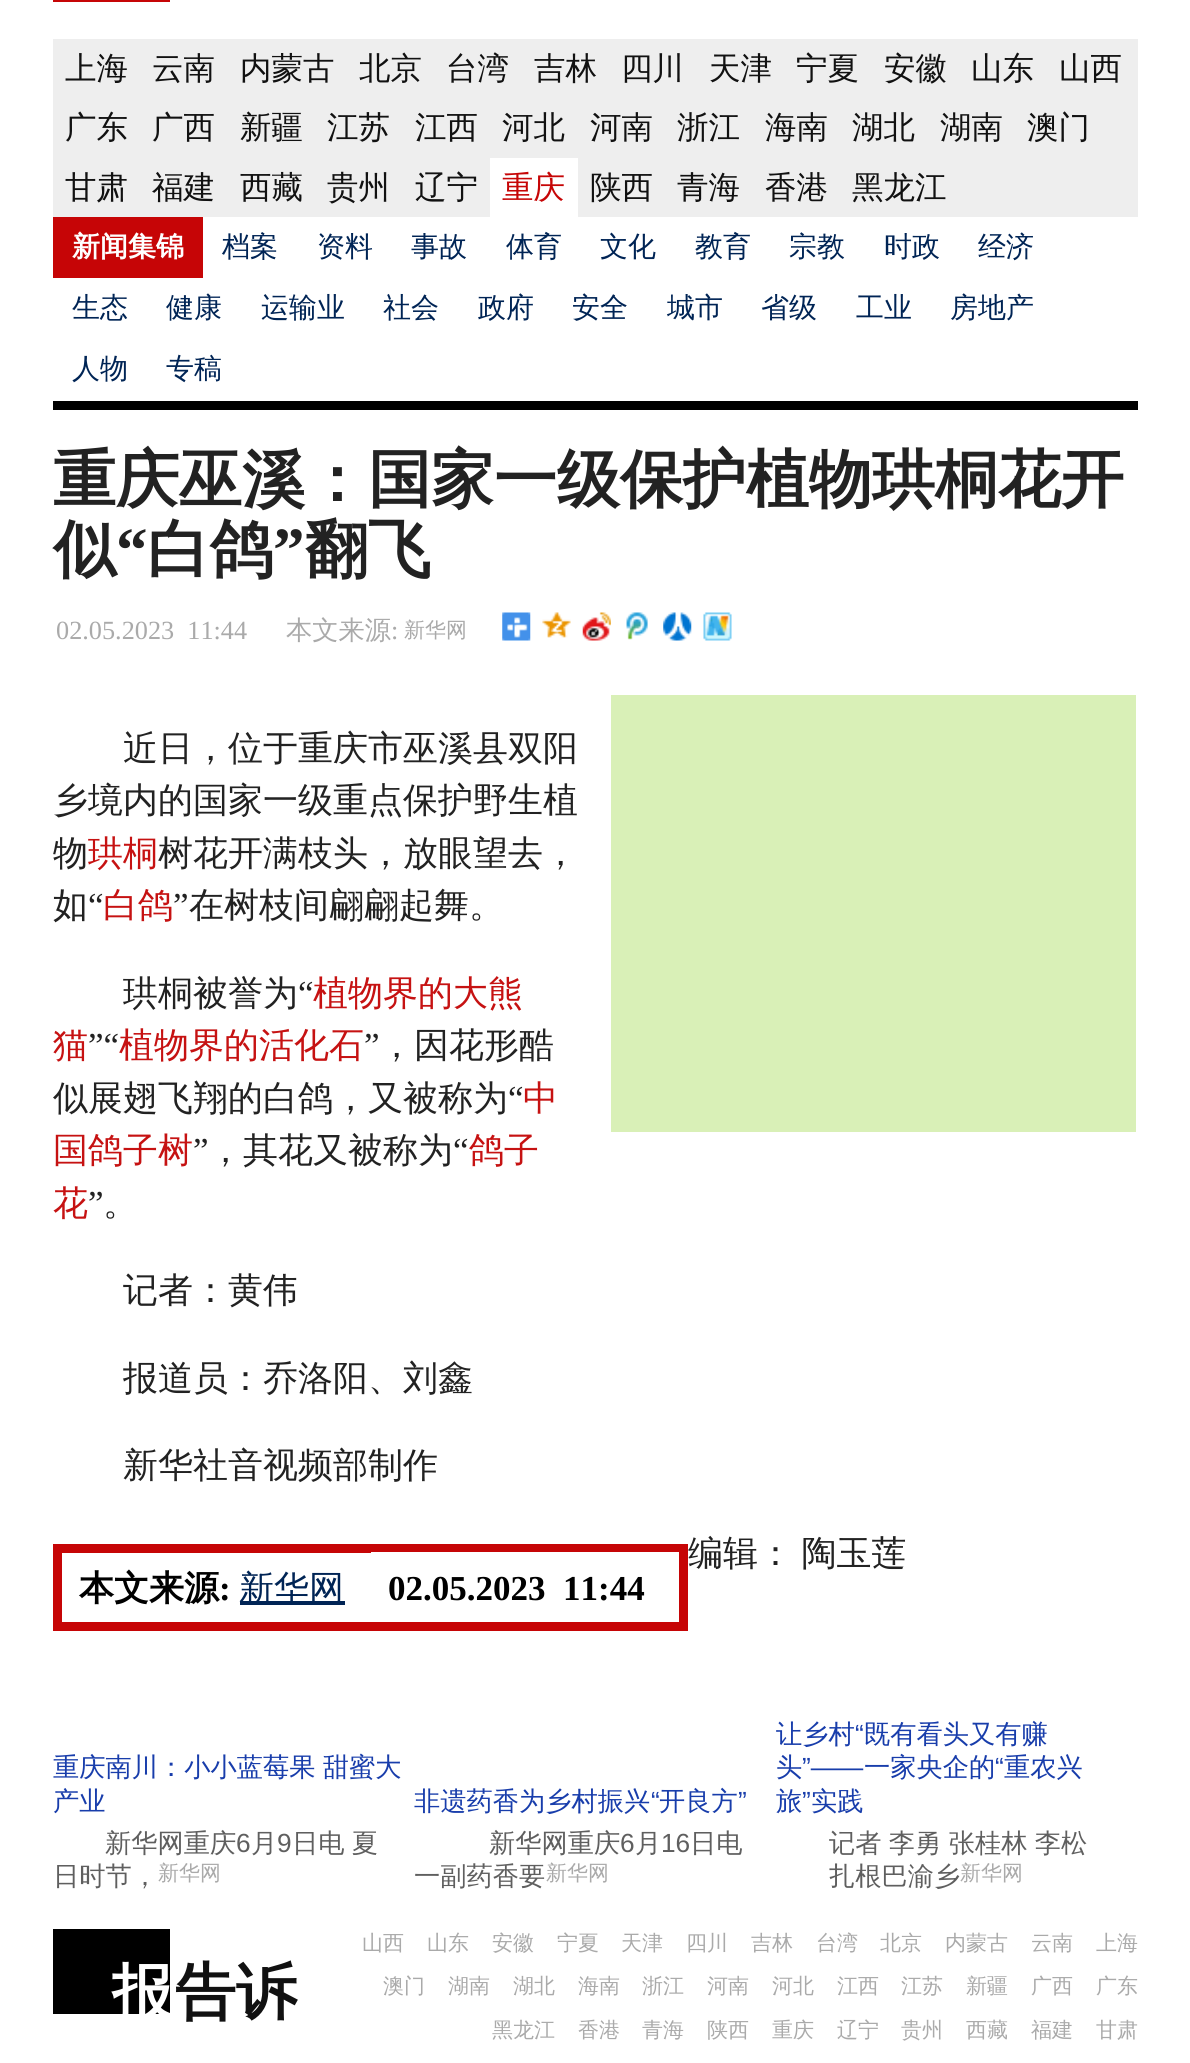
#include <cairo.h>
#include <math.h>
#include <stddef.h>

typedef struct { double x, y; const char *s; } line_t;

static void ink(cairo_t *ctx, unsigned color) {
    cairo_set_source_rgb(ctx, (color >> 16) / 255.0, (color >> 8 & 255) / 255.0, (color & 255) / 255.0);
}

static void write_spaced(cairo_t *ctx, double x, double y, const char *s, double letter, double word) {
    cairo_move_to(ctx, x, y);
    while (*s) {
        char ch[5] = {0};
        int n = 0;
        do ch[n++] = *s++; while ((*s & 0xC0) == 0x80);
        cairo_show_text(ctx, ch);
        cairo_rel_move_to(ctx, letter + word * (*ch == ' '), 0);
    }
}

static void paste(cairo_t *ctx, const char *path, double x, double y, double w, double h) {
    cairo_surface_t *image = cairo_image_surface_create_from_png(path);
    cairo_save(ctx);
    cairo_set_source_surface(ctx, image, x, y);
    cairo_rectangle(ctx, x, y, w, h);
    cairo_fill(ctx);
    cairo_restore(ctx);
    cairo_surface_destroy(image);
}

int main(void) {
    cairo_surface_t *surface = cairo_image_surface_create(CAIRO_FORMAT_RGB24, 1190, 2063);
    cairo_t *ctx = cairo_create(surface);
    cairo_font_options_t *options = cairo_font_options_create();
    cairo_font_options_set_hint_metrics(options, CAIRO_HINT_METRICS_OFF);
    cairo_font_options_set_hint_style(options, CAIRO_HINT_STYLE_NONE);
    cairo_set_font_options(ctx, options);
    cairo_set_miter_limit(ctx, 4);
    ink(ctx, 0xFFFFFF);
    cairo_paint(ctx);
    ink(ctx, 0xC60506);
    cairo_rectangle(ctx, 53, 0, 117, 2);
    cairo_fill(ctx);
    ink(ctx, 0xEEEEEE);
    cairo_rectangle(ctx, 53, 39, 1085, 178);
    cairo_fill(ctx);
    cairo_select_font_face(ctx, "WenQuanYi Zen Hei Medium", CAIRO_FONT_SLANT_NORMAL, CAIRO_FONT_WEIGHT_NORMAL);
    cairo_set_font_size(ctx, 31.5);
    ink(ctx, 0x111111);
    {
        static const line_t items[] = {
            {65, 79, "上海"},
            {152, 79, "云南"},
            {240, 79, "内蒙古"},
            {359, 79, "北京"},
            {446, 79, "台湾"},
            {534, 79, "吉林"},
            {621, 79, "四川"},
            {709, 79, "天津"},
            {796, 79, "宁夏"},
            {884, 79, "安徽"},
            {971, 79, "山东"},
            {1059, 79, "山西"},
            {65, 138, "广东"},
            {152, 138, "广西"},
            {240, 138, "新疆"},
            {327, 138, "江苏"},
            {415, 138, "江西"},
            {502, 138, "河北"},
            {590, 138, "河南"},
            {677, 138, "浙江"},
            {765, 138, "海南"},
            {852, 138, "湖北"},
            {940, 138, "湖南"},
            {1027, 138, "澳门"},
            {65, 198, "甘肃"},
            {152, 198, "福建"},
            {240, 198, "西藏"},
            {327, 198, "贵州"},
            {415, 198, "辽宁"},
        };
        for (size_t i = 0; i < sizeof items / sizeof *items; i++) {
            cairo_move_to(ctx, items[i].x, items[i].y);
            cairo_show_text(ctx, items[i].s);
        }
    }
    ink(ctx, 0xFFFFFF);
    cairo_rectangle(ctx, 490, 158, 88, 59);
    cairo_fill(ctx);
    ink(ctx, 0xC60506);
    cairo_move_to(ctx, 502, 198);
    cairo_show_text(ctx, "重庆");
    ink(ctx, 0x111111);
    {
        static const line_t items[] = {
            {590, 198, "陕西"},
            {677, 198, "青海"},
            {765, 198, "香港"},
            {852, 198, "黑龙江"},
        };
        for (size_t i = 0; i < sizeof items / sizeof *items; i++) {
            cairo_move_to(ctx, items[i].x, items[i].y);
            cairo_show_text(ctx, items[i].s);
        }
    }
    ink(ctx, 0xC60506);
    cairo_rectangle(ctx, 53, 217, 150, 61);
    cairo_fill(ctx);
    cairo_select_font_face(ctx, "WenQuanYi Zen Hei", CAIRO_FONT_SLANT_NORMAL, CAIRO_FONT_WEIGHT_BOLD);
    cairo_set_font_size(ctx, 28);
    ink(ctx, 0xFFFFFF);
    cairo_move_to(ctx, 72, 256);
    cairo_show_text(ctx, "新闻集锦");
    cairo_select_font_face(ctx, "WenQuanYi Zen Hei Medium", CAIRO_FONT_SLANT_NORMAL, CAIRO_FONT_WEIGHT_NORMAL);
    ink(ctx, 0x002455);
    {
        static const line_t items[] = {
            {222, 256, "档案"},
            {317, 256, "资料"},
            {411, 256, "事故"},
            {506, 256, "体育"},
            {600, 256, "文化"},
            {695, 256, "教育"},
            {789, 256, "宗教"},
            {884, 256, "时政"},
            {978, 256, "经济"},
            {72, 317, "生态"},
            {166, 317, "健康"},
            {261, 317, "运输业"},
            {383, 317, "社会"},
            {478, 317, "政府"},
            {572, 317, "安全"},
            {667, 317, "城市"},
            {761, 317, "省级"},
            {856, 317, "工业"},
            {950, 317, "房地产"},
            {72, 378, "人物"},
            {166, 378, "专稿"},
        };
        for (size_t i = 0; i < sizeof items / sizeof *items; i++) {
            cairo_move_to(ctx, items[i].x, items[i].y);
            cairo_show_text(ctx, items[i].s);
        }
    }
    ink(ctx, 0x000000);
    cairo_rectangle(ctx, 53, 401, 1085, 9);
    cairo_fill(ctx);
    cairo_select_font_face(ctx, "WenQuanYi Zen Hei", CAIRO_FONT_SLANT_NORMAL, CAIRO_FONT_WEIGHT_BOLD);
    cairo_set_font_size(ctx, 63);
    ink(ctx, 0x222222);
    cairo_move_to(ctx, 53, 501);
    cairo_show_text(ctx, "重庆巫溪：国家一级保护植物珙桐花开");
    cairo_move_to(ctx, 53, 571);
    cairo_show_text(ctx, "似");
    cairo_select_font_face(ctx, "Liberation Serif", CAIRO_FONT_SLANT_NORMAL, CAIRO_FONT_WEIGHT_BOLD);
    cairo_move_to(ctx, 116, 571);
    cairo_show_text(ctx, "“");
    cairo_select_font_face(ctx, "WenQuanYi Zen Hei", CAIRO_FONT_SLANT_NORMAL, CAIRO_FONT_WEIGHT_BOLD);
    cairo_move_to(ctx, 147, 571);
    cairo_show_text(ctx, "白鸽");
    cairo_select_font_face(ctx, "Liberation Serif", CAIRO_FONT_SLANT_NORMAL, CAIRO_FONT_WEIGHT_BOLD);
    cairo_move_to(ctx, 273, 571);
    cairo_show_text(ctx, "”");
    cairo_select_font_face(ctx, "WenQuanYi Zen Hei", CAIRO_FONT_SLANT_NORMAL, CAIRO_FONT_WEIGHT_BOLD);
    cairo_move_to(ctx, 305, 571);
    cairo_show_text(ctx, "翻飞");
    cairo_select_font_face(ctx, "Liberation Serif", CAIRO_FONT_SLANT_NORMAL, CAIRO_FONT_WEIGHT_NORMAL);
    cairo_set_font_size(ctx, 26.25);
    ink(ctx, 0xAAAAAA);
    cairo_move_to(ctx, 56, 639);
    cairo_show_text(ctx, "02.05.2023  11:44");
    cairo_select_font_face(ctx, "WenQuanYi Zen Hei Medium", CAIRO_FONT_SLANT_NORMAL, CAIRO_FONT_WEIGHT_NORMAL);
    cairo_move_to(ctx, 286, 639);
    cairo_show_text(ctx, "本文来源");
    cairo_select_font_face(ctx, "Liberation Serif", CAIRO_FONT_SLANT_NORMAL, CAIRO_FONT_WEIGHT_NORMAL);
    cairo_move_to(ctx, 391, 639);
    cairo_show_text(ctx, ":");
    cairo_select_font_face(ctx, "WenQuanYi Zen Hei Medium", CAIRO_FONT_SLANT_NORMAL, CAIRO_FONT_WEIGHT_NORMAL);
    cairo_set_font_size(ctx, 21);
    cairo_move_to(ctx, 404, 637);
    cairo_show_text(ctx, "新华网");
    paste(ctx, "media/1.png", 502, 612, 29, 29);
    paste(ctx, "media/2.png", 542, 612, 29, 26);
    paste(ctx, "media/3.png", 582, 612, 29, 29);
    paste(ctx, "media/4.png", 626, 612, 22, 28);
    paste(ctx, "media/5.png", 663, 612, 29, 29);
    paste(ctx, "media/6.png", 703, 612, 29, 29);
    ink(ctx, 0xD9F0B7);
    cairo_rectangle(ctx, 611, 695, 525, 437);
    cairo_fill(ctx);
    cairo_set_font_size(ctx, 35);
    ink(ctx, 0x222222);
    {
        static const line_t items[] = {
            {123, 760, "近日，位于重庆市巫溪县双阳"},
            {53, 812, "乡境内的国家一级重点保护野生植"},
            {53, 865, "物"},
        };
        for (size_t i = 0; i < sizeof items / sizeof *items; i++) {
            cairo_move_to(ctx, items[i].x, items[i].y);
            cairo_show_text(ctx, items[i].s);
        }
    }
    ink(ctx, 0xC61212);
    cairo_move_to(ctx, 88, 865);
    cairo_show_text(ctx, "珙桐");
    ink(ctx, 0x222222);
    cairo_move_to(ctx, 158, 865);
    cairo_show_text(ctx, "树花开满枝头，放眼望去，");
    cairo_move_to(ctx, 53, 917);
    cairo_show_text(ctx, "如");
    cairo_select_font_face(ctx, "Liberation Serif", CAIRO_FONT_SLANT_NORMAL, CAIRO_FONT_WEIGHT_NORMAL);
    cairo_move_to(ctx, 88, 917);
    cairo_show_text(ctx, "“");
    cairo_select_font_face(ctx, "WenQuanYi Zen Hei Medium", CAIRO_FONT_SLANT_NORMAL, CAIRO_FONT_WEIGHT_NORMAL);
    ink(ctx, 0xC61212);
    cairo_move_to(ctx, 103, 917);
    cairo_show_text(ctx, "白鸽");
    cairo_select_font_face(ctx, "Liberation Serif", CAIRO_FONT_SLANT_NORMAL, CAIRO_FONT_WEIGHT_NORMAL);
    ink(ctx, 0x222222);
    cairo_move_to(ctx, 173, 917);
    cairo_show_text(ctx, "”");
    cairo_select_font_face(ctx, "WenQuanYi Zen Hei Medium", CAIRO_FONT_SLANT_NORMAL, CAIRO_FONT_WEIGHT_NORMAL);
    cairo_move_to(ctx, 189, 917);
    cairo_show_text(ctx, "在树枝间翩翩起舞。");
    cairo_move_to(ctx, 123, 1005);
    cairo_show_text(ctx, "珙桐被誉为");
    cairo_select_font_face(ctx, "Liberation Serif", CAIRO_FONT_SLANT_NORMAL, CAIRO_FONT_WEIGHT_NORMAL);
    cairo_move_to(ctx, 298, 1005);
    cairo_show_text(ctx, "“");
    cairo_select_font_face(ctx, "WenQuanYi Zen Hei Medium", CAIRO_FONT_SLANT_NORMAL, CAIRO_FONT_WEIGHT_NORMAL);
    ink(ctx, 0xC61212);
    cairo_move_to(ctx, 313, 1005);
    cairo_show_text(ctx, "植物界的大熊");
    cairo_move_to(ctx, 53, 1057);
    cairo_show_text(ctx, "猫");
    cairo_select_font_face(ctx, "Liberation Serif", CAIRO_FONT_SLANT_NORMAL, CAIRO_FONT_WEIGHT_NORMAL);
    ink(ctx, 0x222222);
    cairo_move_to(ctx, 88, 1057);
    cairo_show_text(ctx, "”“");
    cairo_select_font_face(ctx, "WenQuanYi Zen Hei Medium", CAIRO_FONT_SLANT_NORMAL, CAIRO_FONT_WEIGHT_NORMAL);
    ink(ctx, 0xC61212);
    cairo_move_to(ctx, 119, 1057);
    cairo_show_text(ctx, "植物界的活化石");
    cairo_select_font_face(ctx, "Liberation Serif", CAIRO_FONT_SLANT_NORMAL, CAIRO_FONT_WEIGHT_NORMAL);
    ink(ctx, 0x222222);
    cairo_move_to(ctx, 364, 1057);
    cairo_show_text(ctx, "”");
    cairo_select_font_face(ctx, "WenQuanYi Zen Hei Medium", CAIRO_FONT_SLANT_NORMAL, CAIRO_FONT_WEIGHT_NORMAL);
    cairo_move_to(ctx, 379, 1057);
    cairo_show_text(ctx, "，因花形酷");
    cairo_move_to(ctx, 53, 1110);
    cairo_show_text(ctx, "似展翅飞翔的白鸽，又被称为");
    cairo_select_font_face(ctx, "Liberation Serif", CAIRO_FONT_SLANT_NORMAL, CAIRO_FONT_WEIGHT_NORMAL);
    cairo_move_to(ctx, 508, 1110);
    cairo_show_text(ctx, "“");
    cairo_select_font_face(ctx, "WenQuanYi Zen Hei Medium", CAIRO_FONT_SLANT_NORMAL, CAIRO_FONT_WEIGHT_NORMAL);
    ink(ctx, 0xC61212);
    cairo_move_to(ctx, 523, 1110);
    cairo_show_text(ctx, "中");
    cairo_move_to(ctx, 53, 1162);
    cairo_show_text(ctx, "国鸽子树");
    cairo_select_font_face(ctx, "Liberation Serif", CAIRO_FONT_SLANT_NORMAL, CAIRO_FONT_WEIGHT_NORMAL);
    ink(ctx, 0x222222);
    cairo_move_to(ctx, 193, 1162);
    cairo_show_text(ctx, "”");
    cairo_select_font_face(ctx, "WenQuanYi Zen Hei Medium", CAIRO_FONT_SLANT_NORMAL, CAIRO_FONT_WEIGHT_NORMAL);
    cairo_move_to(ctx, 208, 1162);
    cairo_show_text(ctx, "，其花又被称为");
    cairo_select_font_face(ctx, "Liberation Serif", CAIRO_FONT_SLANT_NORMAL, CAIRO_FONT_WEIGHT_NORMAL);
    cairo_move_to(ctx, 453, 1162);
    cairo_show_text(ctx, "“");
    cairo_select_font_face(ctx, "WenQuanYi Zen Hei Medium", CAIRO_FONT_SLANT_NORMAL, CAIRO_FONT_WEIGHT_NORMAL);
    ink(ctx, 0xC61212);
    cairo_move_to(ctx, 469, 1162);
    cairo_show_text(ctx, "鸽子");
    cairo_move_to(ctx, 53, 1215);
    cairo_show_text(ctx, "花");
    cairo_select_font_face(ctx, "Liberation Serif", CAIRO_FONT_SLANT_NORMAL, CAIRO_FONT_WEIGHT_NORMAL);
    ink(ctx, 0x222222);
    cairo_move_to(ctx, 88, 1215);
    cairo_show_text(ctx, "”");
    cairo_select_font_face(ctx, "WenQuanYi Zen Hei Medium", CAIRO_FONT_SLANT_NORMAL, CAIRO_FONT_WEIGHT_NORMAL);
    {
        static const line_t items[] = {
            {103, 1215, "。"},
            {123, 1302, "记者：黄伟"},
            {123, 1390, "报道员：乔洛阳、刘鑫"},
            {123, 1477, "新华社音视频部制作"},
        };
        for (size_t i = 0; i < sizeof items / sizeof *items; i++) {
            cairo_move_to(ctx, items[i].x, items[i].y);
            cairo_show_text(ctx, items[i].s);
        }
    }
    write_spaced(ctx, 688, 1565, "编辑： 陶玉莲", 0, -2);
    cairo_rectangle(ctx, 57.5, 1548.5, 626, 78);
    ink(ctx, 0xC60506);
    cairo_set_line_width(ctx, 9);
    cairo_stroke(ctx);
    cairo_select_font_face(ctx, "WenQuanYi Zen Hei", CAIRO_FONT_SLANT_NORMAL, CAIRO_FONT_WEIGHT_BOLD);
    ink(ctx, 0x000000);
    cairo_move_to(ctx, 79, 1600);
    cairo_show_text(ctx, "本文来源");
    cairo_select_font_face(ctx, "Liberation Serif", CAIRO_FONT_SLANT_NORMAL, CAIRO_FONT_WEIGHT_BOLD);
    cairo_move_to(ctx, 219, 1600);
    cairo_show_text(ctx, ":");
    ink(ctx, 0x002455);
    cairo_rectangle(ctx, 240, 1601, 105, 4);
    cairo_fill(ctx);
    cairo_select_font_face(ctx, "WenQuanYi Zen Hei Medium", CAIRO_FONT_SLANT_NORMAL, CAIRO_FONT_WEIGHT_NORMAL);
    cairo_move_to(ctx, 239, 1600);
    cairo_show_text(ctx, "新华网");
    ink(ctx, 0xFFFFFF);
    cairo_rectangle(ctx, 371, 1552, 308, 1);
    cairo_fill(ctx);
    cairo_select_font_face(ctx, "Liberation Serif", CAIRO_FONT_SLANT_NORMAL, CAIRO_FONT_WEIGHT_BOLD);
    ink(ctx, 0x000000);
    cairo_move_to(ctx, 388, 1600);
    cairo_show_text(ctx, "02.05.2023  11:44");
    cairo_select_font_face(ctx, "WenQuanYi Zen Hei Medium", CAIRO_FONT_SLANT_NORMAL, CAIRO_FONT_WEIGHT_NORMAL);
    cairo_set_font_size(ctx, 26.25);
    ink(ctx, 0x183DAB);
    write_spaced(ctx, 53, 1776, "重庆南川：小小蓝莓果 甜蜜大", 0, -0.5);
    cairo_move_to(ctx, 53, 1810);
    cairo_show_text(ctx, "产业");
    ink(ctx, 0x5F5F5F);
    cairo_move_to(ctx, 105, 1852);
    cairo_show_text(ctx, "新华网重庆");
    cairo_select_font_face(ctx, "Liberation Sans", CAIRO_FONT_SLANT_NORMAL, CAIRO_FONT_WEIGHT_NORMAL);
    cairo_move_to(ctx, 236, 1852);
    cairo_show_text(ctx, "6");
    cairo_select_font_face(ctx, "WenQuanYi Zen Hei Medium", CAIRO_FONT_SLANT_NORMAL, CAIRO_FONT_WEIGHT_NORMAL);
    cairo_move_to(ctx, 251, 1852);
    cairo_show_text(ctx, "月");
    cairo_select_font_face(ctx, "Liberation Sans", CAIRO_FONT_SLANT_NORMAL, CAIRO_FONT_WEIGHT_NORMAL);
    cairo_move_to(ctx, 277, 1852);
    cairo_show_text(ctx, "9");
    cairo_select_font_face(ctx, "WenQuanYi Zen Hei Medium", CAIRO_FONT_SLANT_NORMAL, CAIRO_FONT_WEIGHT_NORMAL);
    write_spaced(ctx, 292, 1852, "日电 夏", 0, -0.5);
    cairo_move_to(ctx, 53, 1885);
    cairo_show_text(ctx, "日时节，");
    cairo_set_font_size(ctx, 21);
    ink(ctx, 0xAAAAAA);
    cairo_move_to(ctx, 158, 1880);
    cairo_show_text(ctx, "新华网");
    cairo_set_font_size(ctx, 26.25);
    ink(ctx, 0x183DAB);
    cairo_move_to(ctx, 414, 1810);
    cairo_show_text(ctx, "非遗药香为乡村振兴");
    cairo_select_font_face(ctx, "Liberation Sans", CAIRO_FONT_SLANT_NORMAL, CAIRO_FONT_WEIGHT_NORMAL);
    cairo_move_to(ctx, 651, 1810);
    cairo_show_text(ctx, "“");
    cairo_select_font_face(ctx, "WenQuanYi Zen Hei Medium", CAIRO_FONT_SLANT_NORMAL, CAIRO_FONT_WEIGHT_NORMAL);
    cairo_move_to(ctx, 659, 1810);
    cairo_show_text(ctx, "开良方");
    cairo_select_font_face(ctx, "Liberation Sans", CAIRO_FONT_SLANT_NORMAL, CAIRO_FONT_WEIGHT_NORMAL);
    cairo_move_to(ctx, 738, 1810);
    cairo_show_text(ctx, "”");
    cairo_select_font_face(ctx, "WenQuanYi Zen Hei Medium", CAIRO_FONT_SLANT_NORMAL, CAIRO_FONT_WEIGHT_NORMAL);
    ink(ctx, 0x5F5F5F);
    cairo_move_to(ctx, 489, 1852);
    cairo_show_text(ctx, "新华网重庆");
    cairo_select_font_face(ctx, "Liberation Sans", CAIRO_FONT_SLANT_NORMAL, CAIRO_FONT_WEIGHT_NORMAL);
    cairo_move_to(ctx, 620, 1852);
    cairo_show_text(ctx, "6");
    cairo_select_font_face(ctx, "WenQuanYi Zen Hei Medium", CAIRO_FONT_SLANT_NORMAL, CAIRO_FONT_WEIGHT_NORMAL);
    cairo_move_to(ctx, 635, 1852);
    cairo_show_text(ctx, "月");
    cairo_select_font_face(ctx, "Liberation Sans", CAIRO_FONT_SLANT_NORMAL, CAIRO_FONT_WEIGHT_NORMAL);
    cairo_move_to(ctx, 661, 1852);
    cairo_show_text(ctx, "16");
    cairo_select_font_face(ctx, "WenQuanYi Zen Hei Medium", CAIRO_FONT_SLANT_NORMAL, CAIRO_FONT_WEIGHT_NORMAL);
    cairo_move_to(ctx, 690, 1852);
    cairo_show_text(ctx, "日电");
    cairo_move_to(ctx, 414, 1885);
    cairo_show_text(ctx, "一副药香要");
    cairo_set_font_size(ctx, 21);
    ink(ctx, 0xAAAAAA);
    cairo_move_to(ctx, 546, 1880);
    cairo_show_text(ctx, "新华网");
    cairo_set_font_size(ctx, 26.25);
    ink(ctx, 0x183DAB);
    cairo_move_to(ctx, 776, 1743);
    cairo_show_text(ctx, "让乡村");
    cairo_select_font_face(ctx, "Liberation Sans", CAIRO_FONT_SLANT_NORMAL, CAIRO_FONT_WEIGHT_NORMAL);
    cairo_move_to(ctx, 855, 1743);
    cairo_show_text(ctx, "“");
    cairo_select_font_face(ctx, "WenQuanYi Zen Hei Medium", CAIRO_FONT_SLANT_NORMAL, CAIRO_FONT_WEIGHT_NORMAL);
    cairo_move_to(ctx, 864, 1743);
    cairo_show_text(ctx, "既有看头又有赚");
    cairo_move_to(ctx, 776, 1776);
    cairo_show_text(ctx, "头");
    cairo_select_font_face(ctx, "Liberation Sans", CAIRO_FONT_SLANT_NORMAL, CAIRO_FONT_WEIGHT_NORMAL);
    cairo_move_to(ctx, 802, 1776);
    cairo_show_text(ctx, "”——");
    cairo_select_font_face(ctx, "WenQuanYi Zen Hei Medium", CAIRO_FONT_SLANT_NORMAL, CAIRO_FONT_WEIGHT_NORMAL);
    cairo_move_to(ctx, 864, 1776);
    cairo_show_text(ctx, "一家央企的");
    cairo_select_font_face(ctx, "Liberation Sans", CAIRO_FONT_SLANT_NORMAL, CAIRO_FONT_WEIGHT_NORMAL);
    cairo_move_to(ctx, 995, 1776);
    cairo_show_text(ctx, "“");
    cairo_select_font_face(ctx, "WenQuanYi Zen Hei Medium", CAIRO_FONT_SLANT_NORMAL, CAIRO_FONT_WEIGHT_NORMAL);
    cairo_move_to(ctx, 1004, 1776);
    cairo_show_text(ctx, "重农兴");
    cairo_move_to(ctx, 776, 1810);
    cairo_show_text(ctx, "旅");
    cairo_select_font_face(ctx, "Liberation Sans", CAIRO_FONT_SLANT_NORMAL, CAIRO_FONT_WEIGHT_NORMAL);
    cairo_move_to(ctx, 802, 1810);
    cairo_show_text(ctx, "”");
    cairo_select_font_face(ctx, "WenQuanYi Zen Hei Medium", CAIRO_FONT_SLANT_NORMAL, CAIRO_FONT_WEIGHT_NORMAL);
    cairo_move_to(ctx, 811, 1810);
    cairo_show_text(ctx, "实践");
    ink(ctx, 0x5F5F5F);
    write_spaced(ctx, 829, 1852, "记者 李勇 张桂林 李松", 0, -0.5);
    cairo_move_to(ctx, 829, 1885);
    cairo_show_text(ctx, "扎根巴渝乡");
    cairo_set_font_size(ctx, 21);
    ink(ctx, 0xAAAAAA);
    cairo_move_to(ctx, 960, 1880);
    cairo_show_text(ctx, "新华网");
    ink(ctx, 0x000000);
    cairo_rectangle(ctx, 53, 1929, 117, 85);
    cairo_fill(ctx);
    cairo_select_font_face(ctx, "WenQuanYi Zen Hei", CAIRO_FONT_SLANT_NORMAL, CAIRO_FONT_WEIGHT_BOLD);
    cairo_set_font_size(ctx, 61);
    ink(ctx, 0xFFFFFF);
    cairo_move_to(ctx, 112, 2013);
    cairo_show_text(ctx, "报");
    ink(ctx, 0x111111);
    cairo_move_to(ctx, 175, 2013);
    cairo_show_text(ctx, "告诉");
    cairo_select_font_face(ctx, "WenQuanYi Zen Hei Medium", CAIRO_FONT_SLANT_NORMAL, CAIRO_FONT_WEIGHT_NORMAL);
    cairo_set_font_size(ctx, 21);
    ink(ctx, 0xAAAAAA);
    {
        static const line_t items[] = {
            {362, 1950, "山西"},
            {427, 1950, "山东"},
            {492, 1950, "安徽"},
            {557, 1950, "宁夏"},
            {621, 1950, "天津"},
            {686, 1950, "四川"},
            {751, 1950, "吉林"},
            {816, 1950, "台湾"},
            {880, 1950, "北京"},
            {945, 1950, "内蒙古"},
            {1031, 1950, "云南"},
            {1096, 1950, "上海"},
            {383, 1993, "澳门"},
            {448, 1993, "湖南"},
            {513, 1993, "湖北"},
            {578, 1993, "海南"},
            {642, 1993, "浙江"},
            {707, 1993, "河南"},
            {772, 1993, "河北"},
            {837, 1993, "江西"},
            {901, 1993, "江苏"},
            {966, 1993, "新疆"},
            {1031, 1993, "广西"},
            {1096, 1993, "广东"},
            {492, 2037, "黑龙江"},
            {578, 2037, "香港"},
            {642, 2037, "青海"},
            {707, 2037, "陕西"},
            {772, 2037, "重庆"},
            {837, 2037, "辽宁"},
            {901, 2037, "贵州"},
            {966, 2037, "西藏"},
            {1031, 2037, "福建"},
            {1096, 2037, "甘肃"},
        };
        for (size_t i = 0; i < sizeof items / sizeof *items; i++) {
            cairo_move_to(ctx, items[i].x, items[i].y);
            cairo_show_text(ctx, items[i].s);
        }
    }
    cairo_surface_write_to_png(surface, "image.png");
    cairo_font_options_destroy(options);
    cairo_destroy(ctx);
    cairo_surface_destroy(surface);
    return 0;
}
